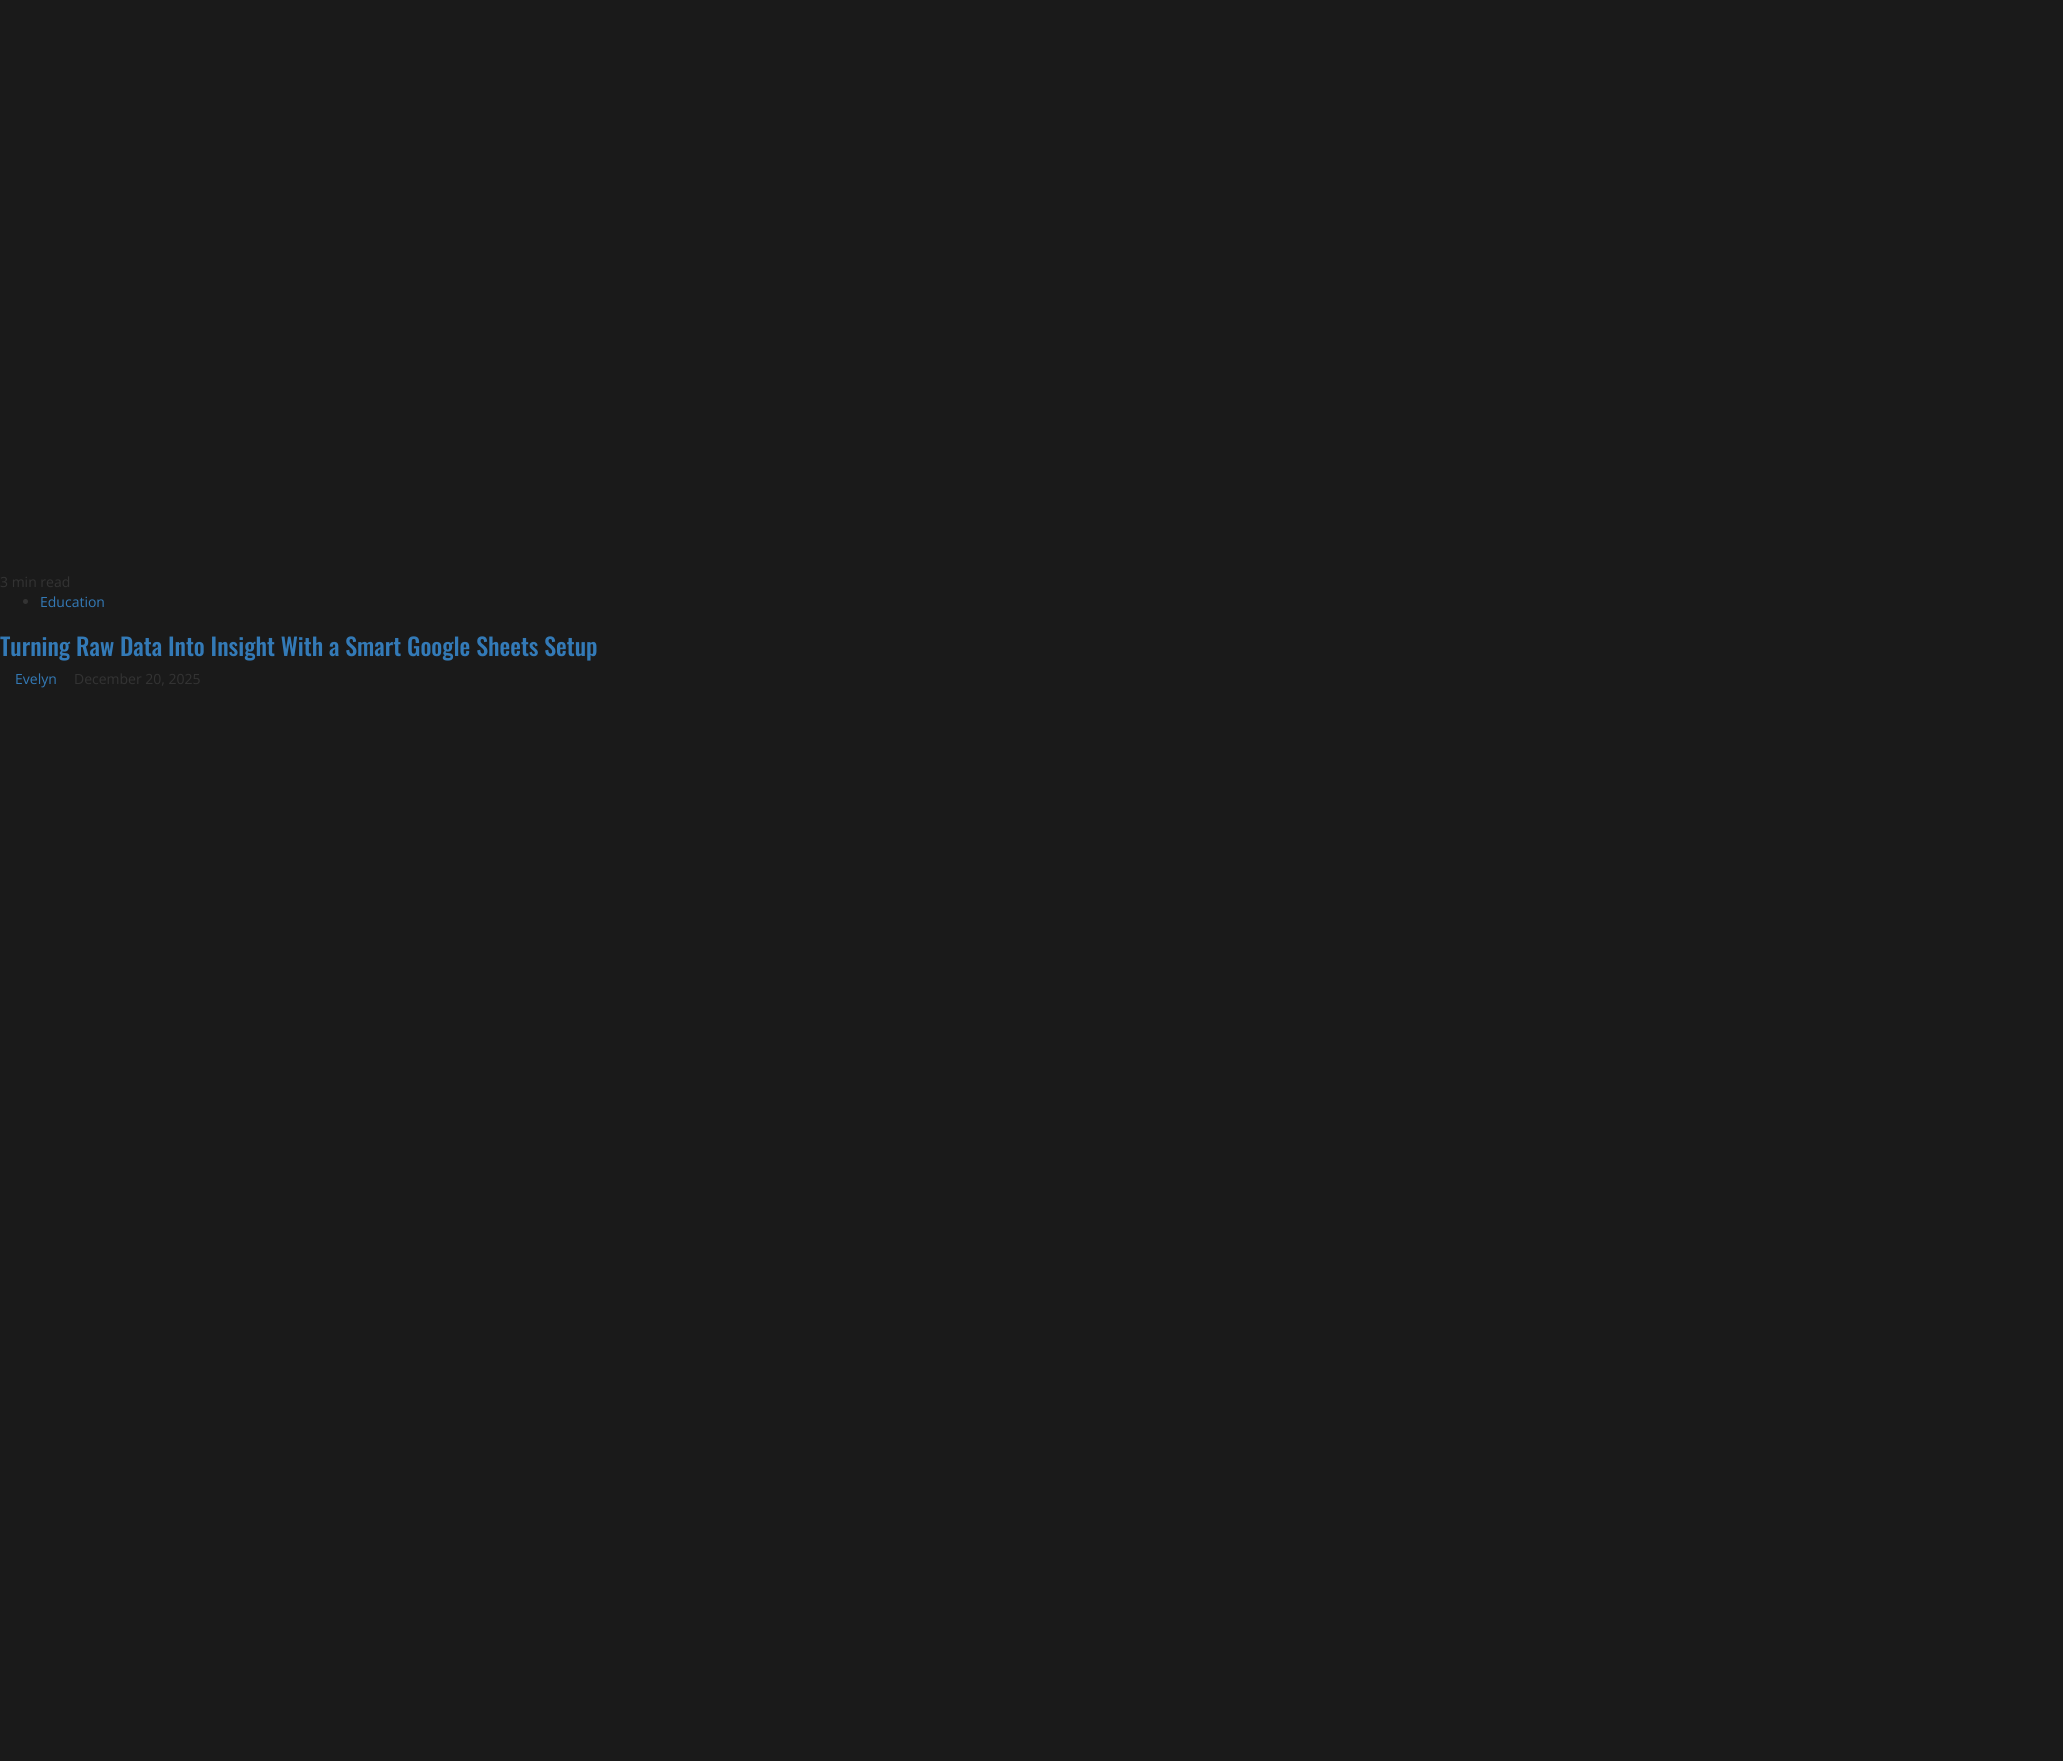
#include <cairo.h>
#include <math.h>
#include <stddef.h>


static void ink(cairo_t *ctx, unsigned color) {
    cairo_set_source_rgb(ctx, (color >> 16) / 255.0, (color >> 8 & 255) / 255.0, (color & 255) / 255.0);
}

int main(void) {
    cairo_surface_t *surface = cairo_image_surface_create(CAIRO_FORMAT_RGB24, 2063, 1761);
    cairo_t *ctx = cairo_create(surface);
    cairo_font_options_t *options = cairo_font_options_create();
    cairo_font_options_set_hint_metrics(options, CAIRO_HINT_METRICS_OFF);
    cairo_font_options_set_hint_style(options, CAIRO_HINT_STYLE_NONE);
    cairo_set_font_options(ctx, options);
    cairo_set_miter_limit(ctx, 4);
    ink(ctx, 0x1A1A1A);
    cairo_paint(ctx);
    cairo_select_font_face(ctx, "Open Sans", CAIRO_FONT_SLANT_NORMAL, CAIRO_FONT_WEIGHT_NORMAL);
    cairo_set_font_size(ctx, 14);
    ink(ctx, 0x333333);
    cairo_move_to(ctx, 0, 587);
    cairo_show_text(ctx, "3 min read");
    cairo_new_path(ctx);
    cairo_arc(ctx, 25.5, 601.5, 2.5, 0, 2 * M_PI);
    cairo_fill(ctx);
    ink(ctx, 0x337AB7);
    cairo_move_to(ctx, 40, 607);
    cairo_show_text(ctx, "Education");
    cairo_select_font_face(ctx, "Oswald Medium", CAIRO_FONT_SLANT_NORMAL, CAIRO_FONT_WEIGHT_NORMAL);
    cairo_set_font_size(ctx, 24);
    cairo_move_to(ctx, 0, 656);
    cairo_show_text(ctx, "Turning Raw Data Into Insight With a Smart Google Sheets Setup");
    cairo_select_font_face(ctx, "Open Sans", CAIRO_FONT_SLANT_NORMAL, CAIRO_FONT_WEIGHT_NORMAL);
    cairo_set_font_size(ctx, 14);
    cairo_move_to(ctx, 15, 684);
    cairo_show_text(ctx, "Evelyn");
    ink(ctx, 0x333333);
    cairo_move_to(ctx, 74, 684);
    cairo_show_text(ctx, "December 20, 2025");
    cairo_surface_write_to_png(surface, "image.png");
    cairo_font_options_destroy(options);
    cairo_destroy(ctx);
    cairo_surface_destroy(surface);
    return 0;
}
